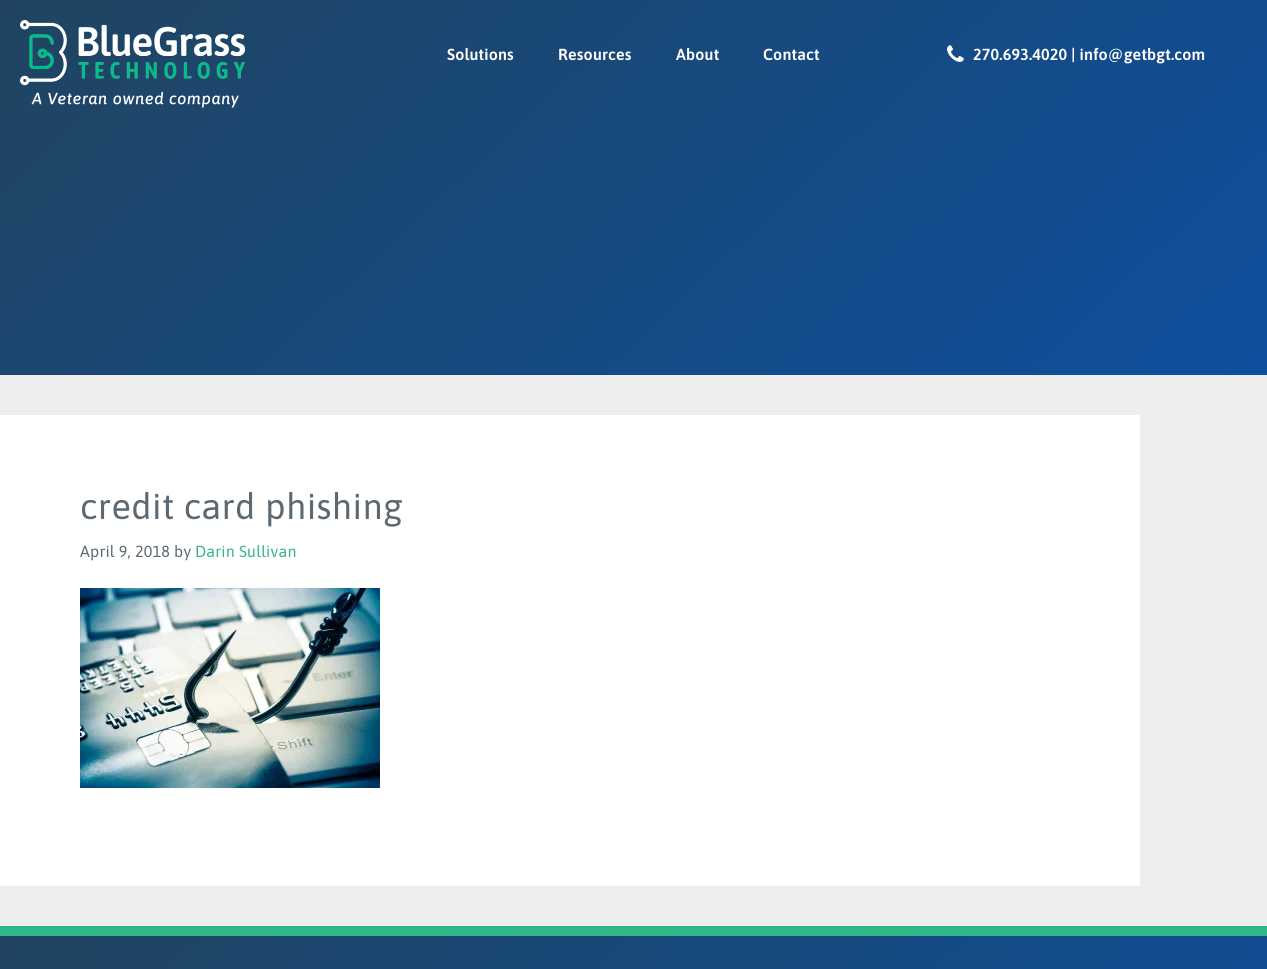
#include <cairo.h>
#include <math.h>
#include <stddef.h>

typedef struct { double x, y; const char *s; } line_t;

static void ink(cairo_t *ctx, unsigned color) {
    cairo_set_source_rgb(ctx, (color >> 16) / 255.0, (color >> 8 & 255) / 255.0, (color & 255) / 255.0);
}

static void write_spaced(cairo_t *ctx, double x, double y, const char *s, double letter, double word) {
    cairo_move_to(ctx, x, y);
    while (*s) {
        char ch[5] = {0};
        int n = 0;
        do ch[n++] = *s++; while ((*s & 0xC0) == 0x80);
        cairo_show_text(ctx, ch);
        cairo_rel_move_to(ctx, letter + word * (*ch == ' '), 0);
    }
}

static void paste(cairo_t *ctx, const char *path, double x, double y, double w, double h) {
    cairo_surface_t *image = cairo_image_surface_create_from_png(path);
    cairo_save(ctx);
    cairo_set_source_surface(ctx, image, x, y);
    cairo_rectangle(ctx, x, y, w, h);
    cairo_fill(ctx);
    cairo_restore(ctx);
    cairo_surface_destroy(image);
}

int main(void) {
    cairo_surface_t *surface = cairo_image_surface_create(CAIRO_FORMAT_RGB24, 1267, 969);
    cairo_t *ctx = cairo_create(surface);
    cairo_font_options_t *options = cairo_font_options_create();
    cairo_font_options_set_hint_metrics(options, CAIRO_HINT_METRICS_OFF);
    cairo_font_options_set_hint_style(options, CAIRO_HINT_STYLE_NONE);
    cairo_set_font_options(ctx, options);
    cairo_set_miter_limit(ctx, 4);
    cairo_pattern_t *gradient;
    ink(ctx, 0xEEEEEE);
    cairo_paint(ctx);
    gradient = cairo_pattern_create_linear(245, -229, 1022, 604);
    cairo_pattern_add_color_stop_rgba(gradient, 0, 0.125, 0.267, 0.376, 1);
    cairo_pattern_add_color_stop_rgba(gradient, 1, 0.055, 0.31, 0.62, 1);
    cairo_set_source(ctx, gradient);
    cairo_pattern_destroy(gradient);
    cairo_rectangle(ctx, 0, 0, 1267, 375);
    cairo_fill(ctx);
    paste(ctx, "media/1.png", 20, 20, 225, 88);
    cairo_select_font_face(ctx, "Asap SemiBold", CAIRO_FONT_SLANT_NORMAL, CAIRO_FONT_WEIGHT_NORMAL);
    cairo_set_font_size(ctx, 16);
    ink(ctx, 0xFFFFFF);
    {
        static const line_t items[] = {
            {447, 60, "Solutions"},
            {558, 60, "Resources"},
            {676, 60, "About"},
            {763, 60, "Contact"},
        };
        for (size_t i = 0; i < sizeof items / sizeof *items; i++) {
            write_spaced(ctx, items[i].x, items[i].y, items[i].s, 0.2, 0);
        }
    }
    paste(ctx, "media/2.png", 947, 45, 17, 17);
    write_spaced(ctx, 973, 60, "270.693.4020 | info@getbgt.com", 0.2, 0);
    cairo_rectangle(ctx, 0, 415, 1140, 471);
    cairo_fill(ctx);
    cairo_select_font_face(ctx, "Asap", CAIRO_FONT_SLANT_NORMAL, CAIRO_FONT_WEIGHT_NORMAL);
    cairo_set_font_size(ctx, 36);
    ink(ctx, 0x5D6972);
    write_spaced(ctx, 80, 519, "credit card phishing", 0.4, 0);
    cairo_set_font_size(ctx, 16);
    write_spaced(ctx, 80, 557, "April 9, 2018 by", 0.2, 0);
    ink(ctx, 0x3AB488);
    write_spaced(ctx, 195, 557, "Darin Sullivan", 0.2, 0);
    paste(ctx, "media/3.png", 80, 588, 300, 200);
    gradient = cairo_pattern_create_linear(258, 695, 1009, 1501);
    cairo_pattern_add_color_stop_rgba(gradient, 0, 0.125, 0.267, 0.376, 1);
    cairo_pattern_add_color_stop_rgba(gradient, 1, 0.055, 0.31, 0.62, 1);
    cairo_set_source(ctx, gradient);
    cairo_pattern_destroy(gradient);
    cairo_rectangle(ctx, 0, 936, 1267, 33);
    cairo_fill(ctx);
    ink(ctx, 0x30B788);
    cairo_rectangle(ctx, 0, 926, 1267, 10);
    cairo_fill(ctx);
    cairo_surface_write_to_png(surface, "image.png");
    cairo_font_options_destroy(options);
    cairo_destroy(ctx);
    cairo_surface_destroy(surface);
    return 0;
}
